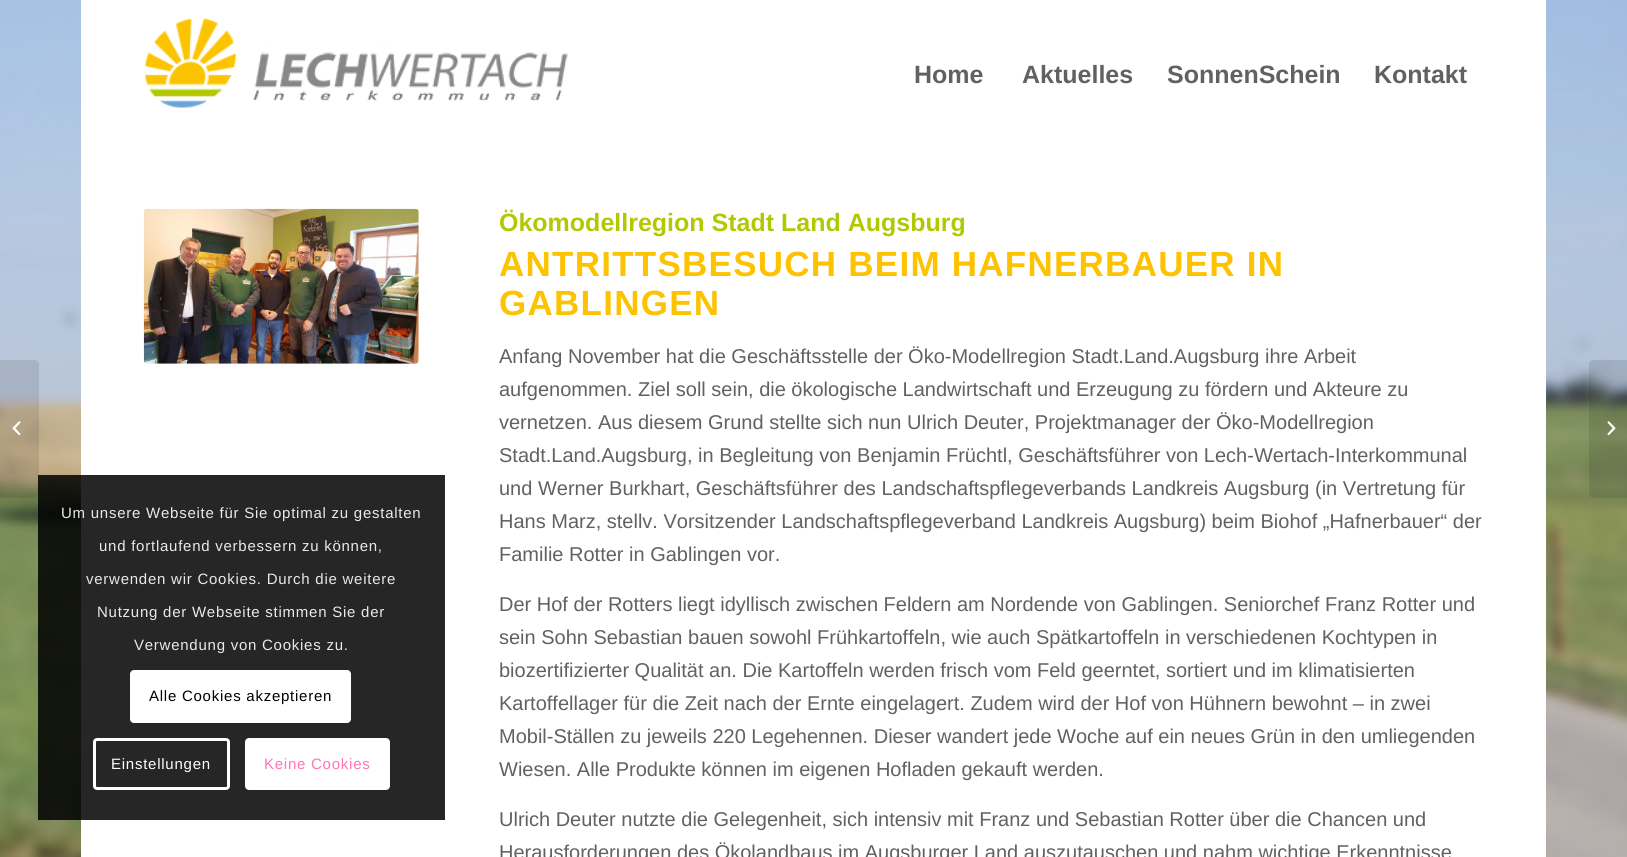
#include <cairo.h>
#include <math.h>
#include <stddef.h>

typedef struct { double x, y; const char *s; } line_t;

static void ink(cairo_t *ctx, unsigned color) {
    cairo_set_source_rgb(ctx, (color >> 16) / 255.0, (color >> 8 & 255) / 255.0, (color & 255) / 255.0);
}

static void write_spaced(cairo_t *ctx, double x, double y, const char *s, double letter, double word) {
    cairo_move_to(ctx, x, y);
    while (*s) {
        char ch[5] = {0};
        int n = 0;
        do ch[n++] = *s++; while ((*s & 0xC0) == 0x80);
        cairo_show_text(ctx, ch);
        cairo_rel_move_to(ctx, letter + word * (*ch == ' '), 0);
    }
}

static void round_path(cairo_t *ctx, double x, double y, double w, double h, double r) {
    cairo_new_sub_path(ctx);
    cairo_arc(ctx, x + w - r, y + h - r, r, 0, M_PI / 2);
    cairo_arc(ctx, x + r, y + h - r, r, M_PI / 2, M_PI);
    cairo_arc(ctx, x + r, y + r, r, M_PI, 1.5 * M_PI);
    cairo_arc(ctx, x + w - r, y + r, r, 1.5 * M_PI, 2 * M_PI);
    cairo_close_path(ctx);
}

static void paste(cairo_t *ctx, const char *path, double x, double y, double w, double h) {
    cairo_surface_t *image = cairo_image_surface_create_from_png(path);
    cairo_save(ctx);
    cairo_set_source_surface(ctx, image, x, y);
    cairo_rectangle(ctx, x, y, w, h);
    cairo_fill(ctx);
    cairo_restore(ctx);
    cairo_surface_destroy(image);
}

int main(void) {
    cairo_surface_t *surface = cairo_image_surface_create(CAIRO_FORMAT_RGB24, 1627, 857);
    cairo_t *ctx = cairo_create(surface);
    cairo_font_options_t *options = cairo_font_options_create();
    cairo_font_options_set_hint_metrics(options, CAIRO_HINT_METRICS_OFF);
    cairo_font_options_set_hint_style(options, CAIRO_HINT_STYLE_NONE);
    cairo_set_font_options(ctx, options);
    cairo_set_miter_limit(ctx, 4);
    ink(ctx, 0xFFFFFF);
    cairo_paint(ctx);
    paste(ctx, "media/1.png", 0, 0, 1627, 857);
    cairo_set_source_rgba(ctx, 0, 0, 0, 0.1);
    cairo_new_path(ctx);
    cairo_move_to(ctx, 0, 360);
    cairo_line_to(ctx, 34, 360);
    cairo_curve_to(ctx, 37, 360, 39, 362, 39, 365);
    cairo_line_to(ctx, 39, 493);
    cairo_curve_to(ctx, 39, 496, 37, 498, 34, 498);
    cairo_line_to(ctx, 0, 498);
    cairo_close_path(ctx);
    cairo_fill(ctx);
    ink(ctx, 0xFFFFFF);
    cairo_rectangle(ctx, 81, 0, 1465, 857);
    cairo_fill(ctx);
    cairo_set_source_rgba(ctx, 0, 0, 0, 0.85);
    cairo_rectangle(ctx, 38, 475, 407, 345);
    cairo_fill(ctx);
    cairo_select_font_face(ctx, "Liberation Sans", CAIRO_FONT_SLANT_NORMAL, CAIRO_FONT_WEIGHT_NORMAL);
    cairo_set_font_size(ctx, 15);
    ink(ctx, 0xE9E9E9);
    {
        static const line_t items[] = {
            {61, 518, "Um unsere Webseite für Sie optimal zu gestalten"},
            {99, 551, "und fortlaufend verbessern zu können,"},
            {86, 584, "verwenden wir Cookies. Durch die weitere"},
            {97, 617, "Nutzung der Webseite stimmen Sie der"},
            {134, 650, "Verwendung von Cookies zu."},
        };
        for (size_t i = 0; i < sizeof items / sizeof *items; i++) {
            write_spaced(ctx, items[i].x, items[i].y, items[i].s, 0.75, 0);
        }
    }
    ink(ctx, 0xFFFFFF);
    round_path(ctx, 130, 670, 221, 53, 4);
    cairo_fill(ctx);
    ink(ctx, 0x000000);
    write_spaced(ctx, 149, 701, "Alle Cookies akzeptieren", 0.75, 0);
    round_path(ctx, 94.5, 739.5, 134, 49, 2.5);
    ink(ctx, 0xFFFFFF);
    cairo_set_line_width(ctx, 3);
    cairo_stroke(ctx);
    write_spaced(ctx, 111, 769, "Einstellungen", 0.75, 0);
    round_path(ctx, 246.5, 739.5, 142, 49, 2.5);
    cairo_fill_preserve(ctx);
    cairo_stroke(ctx);
    ink(ctx, 0xFF75B5);
    write_spaced(ctx, 264, 769, "Keine Cookies", 0.75, 0);
    paste(ctx, "media/2.png", 144, 18, 424, 90);
    cairo_select_font_face(ctx, "Liberation Sans", CAIRO_FONT_SLANT_NORMAL, CAIRO_FONT_WEIGHT_BOLD);
    cairo_set_font_size(ctx, 25);
    ink(ctx, 0x616161);
    {
        static const line_t items[] = {
            {914, 83, "Home"},
            {1022, 83, "Aktuelles"},
            {1167, 83, "SonnenSchein"},
            {1374, 83, "Kontakt"},
        };
        for (size_t i = 0; i < sizeof items / sizeof *items; i++) {
            cairo_move_to(ctx, items[i].x, items[i].y);
            cairo_show_text(ctx, items[i].s);
        }
    }
    ink(ctx, 0xE1E1E1);
    cairo_rectangle(ctx, 81, 145, 1465, 1);
    cairo_fill(ctx);
    cairo_set_source_rgba(ctx, 1, 1, 1, 0.95);
    cairo_rectangle(ctx, 81, 145, 1465, 1);
    cairo_fill(ctx);
    paste(ctx, "media/3.png", 12, 421, 9, 15);
    paste(ctx, "media/4.png", 143, 208, 276, 156);
    ink(ctx, 0xB1C903);
    cairo_move_to(ctx, 499, 231);
    cairo_show_text(ctx, "Ökomodellregion Stadt Land Augsburg");
    cairo_set_font_size(ctx, 35);
    ink(ctx, 0xFDC200);
    write_spaced(ctx, 499, 276, "ANTRITTSBESUCH BEIM HAFNERBAUER IN", 1.25, 0);
    write_spaced(ctx, 499, 315, "GABLINGEN", 1.25, 0);
    cairo_select_font_face(ctx, "Liberation Sans", CAIRO_FONT_SLANT_NORMAL, CAIRO_FONT_WEIGHT_NORMAL);
    cairo_set_font_size(ctx, 20);
    ink(ctx, 0x616161);
    {
        static const line_t items[] = {
            {499, 363, "Anfang November hat die Geschäftsstelle der Öko-Modellregion Stadt.Land.Augsburg ihre Arbeit"},
            {499, 396, "aufgenommen. Ziel soll sein, die ökologische Landwirtschaft und Erzeugung zu fördern und Akteure zu"},
            {499, 429, "vernetzen. Aus diesem Grund stellte sich nun Ulrich Deuter, Projektmanager der Öko-Modellregion"},
            {499, 462, "Stadt.Land.Augsburg, in Begleitung von Benjamin Früchtl, Geschäftsführer von Lech-Wertach-Interkommunal"},
            {499, 495, "und Werner Burkhart, Geschäftsführer des Landschaftspflegeverbands Landkreis Augsburg (in Vertretung für"},
            {499, 528, "Hans Marz, stellv. Vorsitzender Landschaftspflegeverband Landkreis Augsburg) beim Biohof „Hafnerbauer“ der"},
            {499, 561, "Familie Rotter in Gablingen vor."},
            {499, 611, "Der Hof der Rotters liegt idyllisch zwischen Feldern am Nordende von Gablingen. Seniorchef Franz Rotter und"},
            {499, 644, "sein Sohn Sebastian bauen sowohl Frühkartoffeln, wie auch Spätkartoffeln in verschiedenen Kochtypen in"},
            {499, 677, "biozertifizierter Qualität an. Die Kartoffeln werden frisch vom Feld geerntet, sortiert und im klimatisierten"},
            {499, 710, "Kartoffellager für die Zeit nach der Ernte eingelagert. Zudem wird der Hof von Hühnern bewohnt – in zwei"},
            {499, 743, "Mobil-Ställen zu jeweils 220 Legehennen. Dieser wandert jede Woche auf ein neues Grün in den umliegenden"},
            {499, 776, "Wiesen. Alle Produkte können im eigenen Hofladen gekauft werden."},
            {499, 826, "Ulrich Deuter nutzte die Gelegenheit, sich intensiv mit Franz und Sebastian Rotter über die Chancen und"},
            {499, 859, "Herausforderungen des Ökolandbaus im Augsburger Land auszutauschen und nahm wichtige Erkenntnisse"},
        };
        for (size_t i = 0; i < sizeof items / sizeof *items; i++) {
            cairo_move_to(ctx, items[i].x, items[i].y);
            cairo_show_text(ctx, items[i].s);
        }
    }
    cairo_set_source_rgba(ctx, 0, 0, 0, 0.1);
    cairo_new_path(ctx);
    cairo_move_to(ctx, 1594, 360);
    cairo_line_to(ctx, 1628, 360);
    cairo_line_to(ctx, 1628, 498);
    cairo_line_to(ctx, 1594, 498);
    cairo_curve_to(ctx, 1591, 498, 1589, 496, 1589, 493);
    cairo_line_to(ctx, 1589, 365);
    cairo_curve_to(ctx, 1589, 362, 1591, 360, 1594, 360);
    cairo_close_path(ctx);
    cairo_fill(ctx);
    paste(ctx, "media/5.png", 1607, 421, 9, 15);
    cairo_surface_write_to_png(surface, "image.png");
    cairo_font_options_destroy(options);
    cairo_destroy(ctx);
    cairo_surface_destroy(surface);
    return 0;
}
